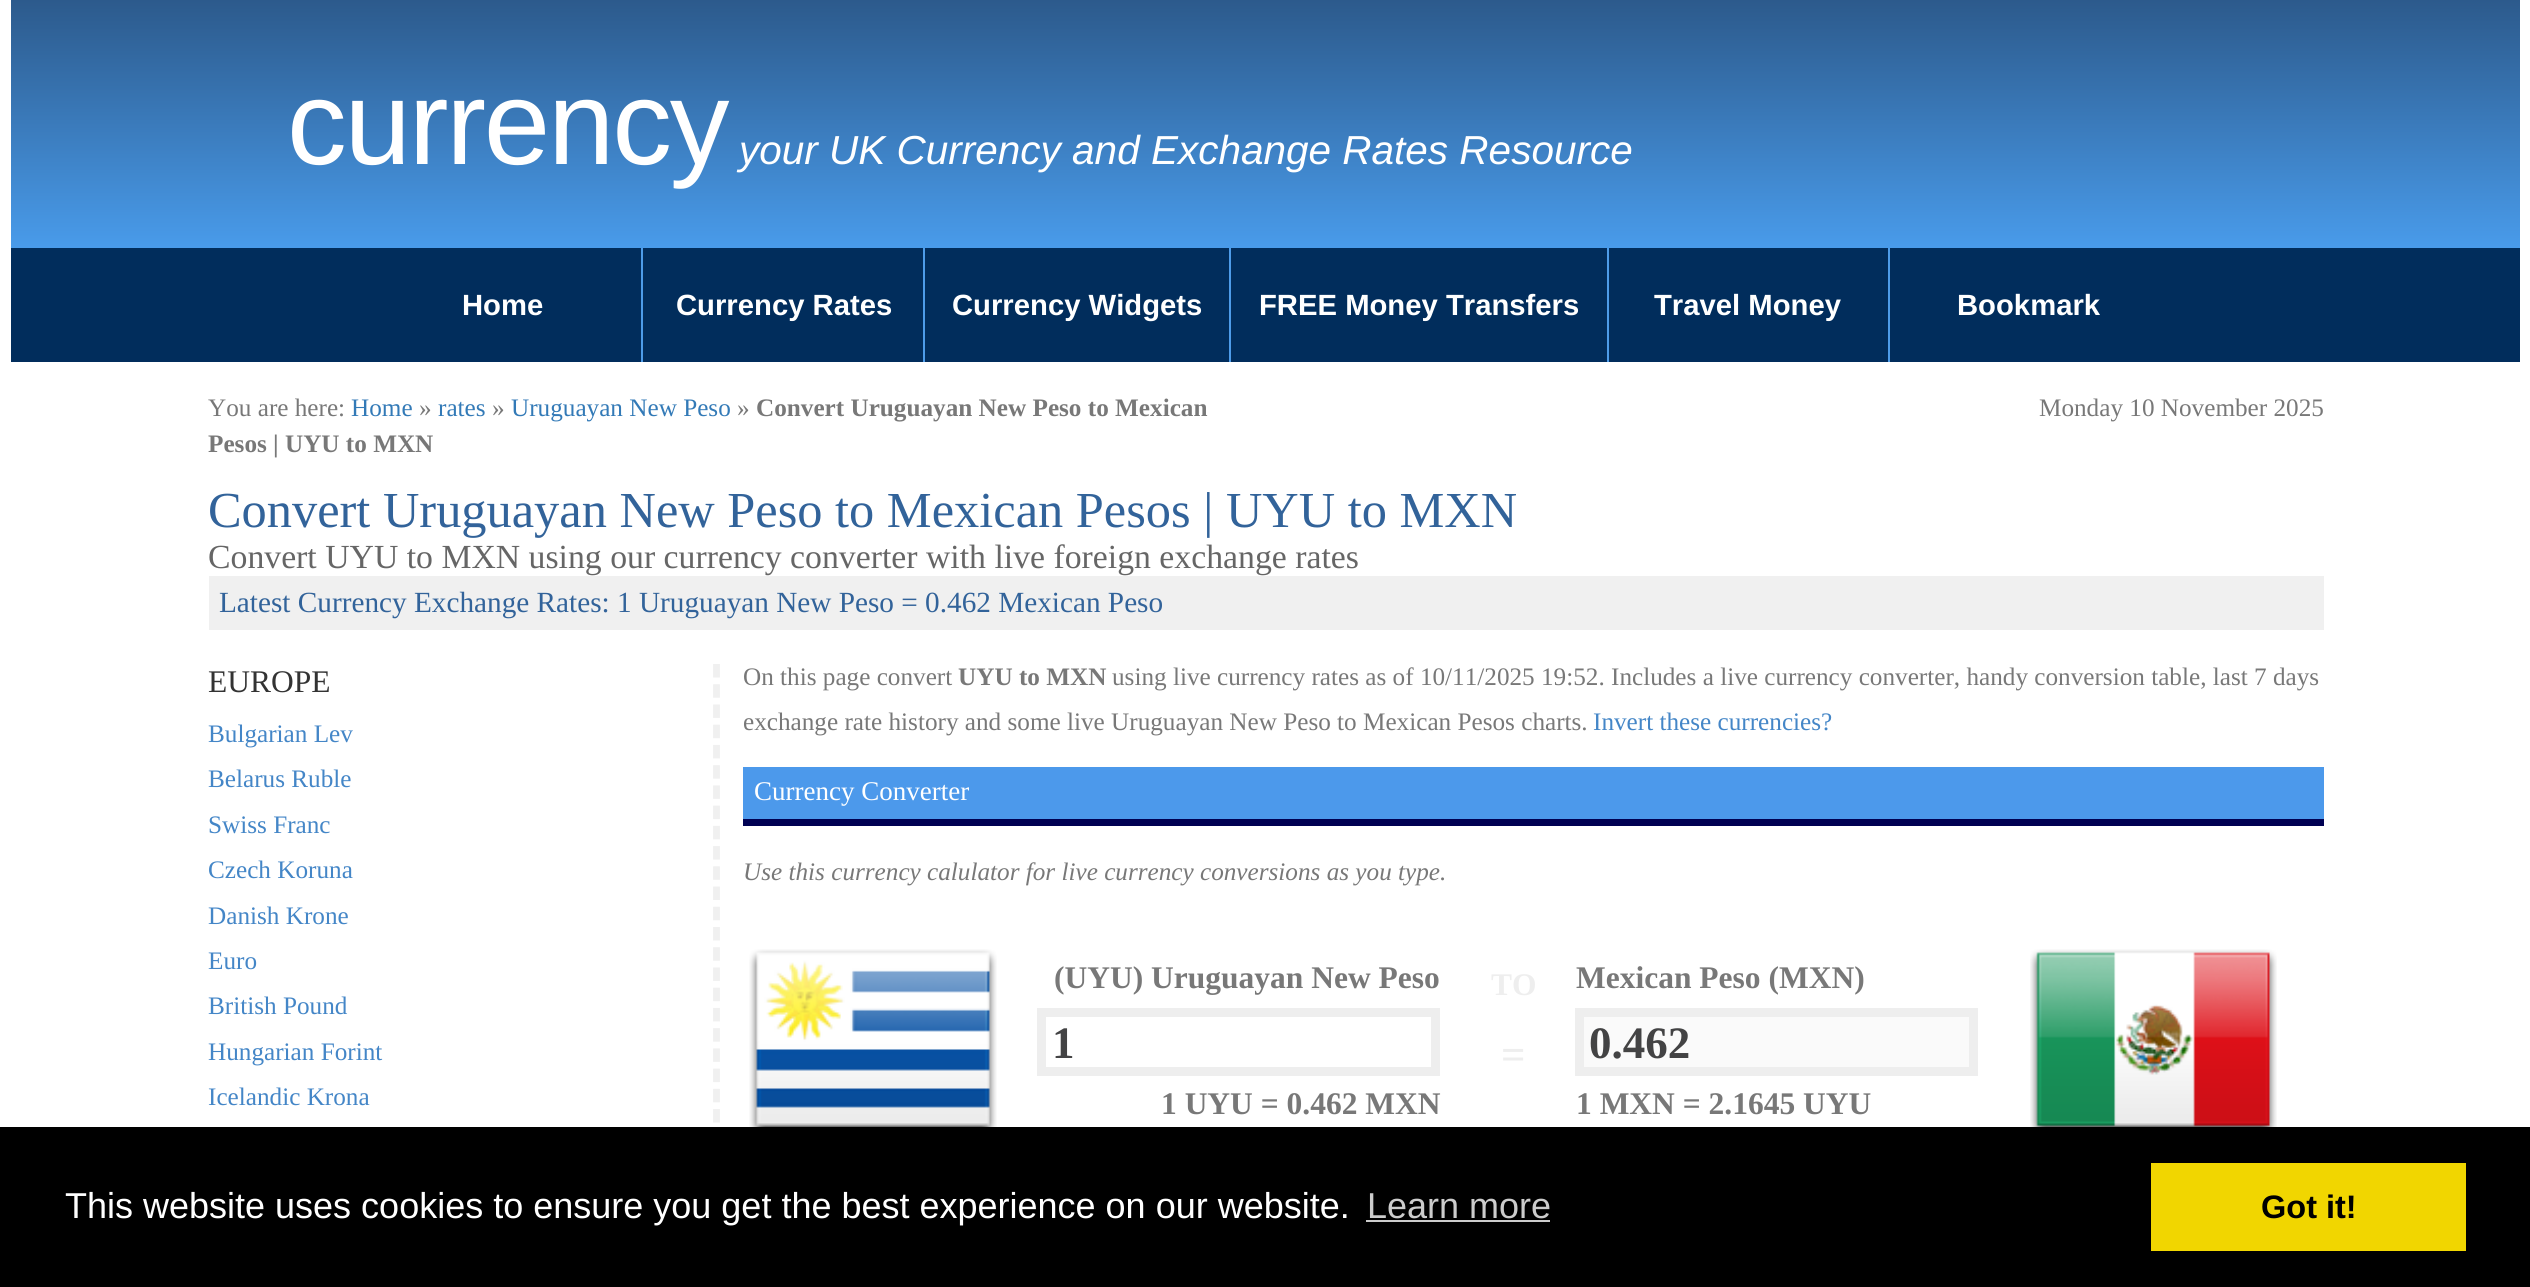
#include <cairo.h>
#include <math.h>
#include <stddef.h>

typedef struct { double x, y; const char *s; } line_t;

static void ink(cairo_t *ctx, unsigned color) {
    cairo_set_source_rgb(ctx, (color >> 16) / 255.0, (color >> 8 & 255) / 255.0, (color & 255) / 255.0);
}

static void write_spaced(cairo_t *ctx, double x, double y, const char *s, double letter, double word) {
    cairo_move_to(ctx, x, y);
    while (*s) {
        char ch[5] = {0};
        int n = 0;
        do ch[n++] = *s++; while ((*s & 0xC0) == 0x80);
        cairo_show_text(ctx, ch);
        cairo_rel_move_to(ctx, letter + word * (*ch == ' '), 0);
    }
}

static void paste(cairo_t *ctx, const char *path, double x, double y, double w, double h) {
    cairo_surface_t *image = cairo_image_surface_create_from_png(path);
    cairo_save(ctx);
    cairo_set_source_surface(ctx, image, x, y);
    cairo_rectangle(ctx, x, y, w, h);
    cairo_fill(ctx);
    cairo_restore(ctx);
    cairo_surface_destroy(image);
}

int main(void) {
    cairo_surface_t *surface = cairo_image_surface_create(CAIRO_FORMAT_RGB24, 2530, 1287);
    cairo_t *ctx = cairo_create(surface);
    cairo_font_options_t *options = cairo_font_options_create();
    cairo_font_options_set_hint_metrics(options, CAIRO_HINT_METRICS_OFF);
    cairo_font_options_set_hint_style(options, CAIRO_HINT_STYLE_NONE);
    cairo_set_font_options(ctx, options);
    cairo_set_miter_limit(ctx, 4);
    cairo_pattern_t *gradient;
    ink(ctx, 0xFFFFFF);
    cairo_paint(ctx);
    gradient = cairo_pattern_create_linear(1266, 0, 1266, 248);
    cairo_pattern_add_color_stop_rgba(gradient, 0, 0.173, 0.353, 0.549, 1);
    cairo_pattern_add_color_stop_rgba(gradient, 1, 0.286, 0.608, 0.918, 1);
    cairo_set_source(ctx, gradient);
    cairo_pattern_destroy(gradient);
    cairo_rectangle(ctx, 11, 0, 2509, 248);
    cairo_fill(ctx);
    cairo_select_font_face(ctx, "Liberation Sans", CAIRO_FONT_SLANT_NORMAL, CAIRO_FONT_WEIGHT_NORMAL);
    cairo_set_font_size(ctx, 119.5);
    ink(ctx, 0xFFFFFF);
    write_spaced(ctx, 287, 164, "currency", -2.25, 0);
    cairo_select_font_face(ctx, "Liberation Sans", CAIRO_FONT_SLANT_ITALIC, CAIRO_FONT_WEIGHT_NORMAL);
    cairo_set_font_size(ctx, 40.5);
    cairo_move_to(ctx, 739, 164);
    cairo_show_text(ctx, "your UK Currency and Exchange Rates Resource");
    ink(ctx, 0x012D5C);
    cairo_rectangle(ctx, 11, 248, 2509, 114);
    cairo_fill(ctx);
    cairo_select_font_face(ctx, "Liberation Sans", CAIRO_FONT_SLANT_NORMAL, CAIRO_FONT_WEIGHT_BOLD);
    cairo_set_font_size(ctx, 29.25);
    ink(ctx, 0xFFFFFF);
    cairo_move_to(ctx, 462, 315);
    cairo_show_text(ctx, "Home");
    ink(ctx, 0x4E9CE9);
    cairo_rectangle(ctx, 641, 248, 2, 114);
    cairo_fill(ctx);
    ink(ctx, 0xFFFFFF);
    cairo_move_to(ctx, 676, 315);
    cairo_show_text(ctx, "Currency Rates");
    ink(ctx, 0x4E9CE9);
    cairo_rectangle(ctx, 923, 248, 2, 114);
    cairo_fill(ctx);
    ink(ctx, 0xFFFFFF);
    cairo_move_to(ctx, 952, 315);
    cairo_show_text(ctx, "Currency Widgets");
    ink(ctx, 0x4E9CE9);
    cairo_rectangle(ctx, 1229, 248, 2, 114);
    cairo_fill(ctx);
    ink(ctx, 0xFFFFFF);
    cairo_move_to(ctx, 1259, 315);
    cairo_show_text(ctx, "FREE Money Transfers");
    ink(ctx, 0x4E9CE9);
    cairo_rectangle(ctx, 1607, 248, 2, 114);
    cairo_fill(ctx);
    ink(ctx, 0xFFFFFF);
    cairo_move_to(ctx, 1654, 315);
    cairo_show_text(ctx, "Travel Money");
    ink(ctx, 0x4E9CE9);
    cairo_rectangle(ctx, 1888, 248, 2, 114);
    cairo_fill(ctx);
    ink(ctx, 0xFFFFFF);
    cairo_move_to(ctx, 1957, 315);
    cairo_show_text(ctx, "Bookmark");
    cairo_select_font_face(ctx, "Liberation Serif", CAIRO_FONT_SLANT_NORMAL, CAIRO_FONT_WEIGHT_NORMAL);
    cairo_set_font_size(ctx, 25.2);
    ink(ctx, 0x787878);
    cairo_move_to(ctx, 208, 416);
    cairo_show_text(ctx, "You are here:");
    ink(ctx, 0x337AB7);
    cairo_move_to(ctx, 351, 416);
    cairo_show_text(ctx, "Home");
    ink(ctx, 0x787878);
    cairo_move_to(ctx, 419, 416);
    cairo_show_text(ctx, "»");
    ink(ctx, 0x337AB7);
    cairo_move_to(ctx, 438, 416);
    cairo_show_text(ctx, "rates");
    ink(ctx, 0x787878);
    cairo_move_to(ctx, 492, 416);
    cairo_show_text(ctx, "»");
    ink(ctx, 0x337AB7);
    cairo_move_to(ctx, 511, 416);
    cairo_show_text(ctx, "Uruguayan New Peso");
    ink(ctx, 0x787878);
    cairo_move_to(ctx, 737, 416);
    cairo_show_text(ctx, "»");
    cairo_select_font_face(ctx, "Liberation Serif", CAIRO_FONT_SLANT_NORMAL, CAIRO_FONT_WEIGHT_BOLD);
    cairo_move_to(ctx, 756, 416);
    cairo_show_text(ctx, "Convert Uruguayan New Peso to Mexican");
    cairo_move_to(ctx, 208, 452);
    cairo_show_text(ctx, "Pesos | UYU to MXN");
    cairo_select_font_face(ctx, "Liberation Serif", CAIRO_FONT_SLANT_NORMAL, CAIRO_FONT_WEIGHT_NORMAL);
    cairo_move_to(ctx, 2039, 416);
    cairo_show_text(ctx, "Monday 10 November 2025");
    cairo_set_font_size(ctx, 50.4);
    ink(ctx, 0x32639A);
    cairo_move_to(ctx, 208, 527);
    cairo_show_text(ctx, "Convert Uruguayan New Peso to Mexican Pesos | UYU to MXN");
    cairo_set_font_size(ctx, 33.75);
    ink(ctx, 0x666666);
    cairo_move_to(ctx, 208, 568);
    cairo_show_text(ctx, "Convert UYU to MXN using our currency converter with live foreign exchange rates");
    ink(ctx, 0xF0F0F0);
    cairo_rectangle(ctx, 209, 576, 2115, 54);
    cairo_fill(ctx);
    cairo_set_font_size(ctx, 29.25);
    ink(ctx, 0x32639A);
    cairo_move_to(ctx, 219, 612);
    cairo_show_text(ctx, "Latest Currency Exchange Rates: 1 Uruguayan New Peso = 0.462 Mexican Peso");
    cairo_new_path(ctx);
    cairo_move_to(ctx, 716.5, 664);
    cairo_line_to(ctx, 716.5, 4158);
    ink(ctx, 0xF0F0F0);
    cairo_set_line_width(ctx, 6.8);
    cairo_set_dash(ctx, (double[]){13.5, 6.73}, 2, 0);
    cairo_stroke(ctx);
    cairo_set_font_size(ctx, 31.5);
    ink(ctx, 0x333333);
    cairo_move_to(ctx, 208, 692);
    cairo_show_text(ctx, "EUROPE");
    cairo_set_font_size(ctx, 25.2);
    ink(ctx, 0x4486C7);
    {
        static const line_t items[] = {
            {208, 742, "Bulgarian Lev"},
            {208, 787, "Belarus Ruble"},
            {208, 833, "Swiss Franc"},
            {208, 878, "Czech Koruna"},
            {208, 924, "Danish Krone"},
            {208, 969, "Euro"},
            {208, 1014, "British Pound"},
            {208, 1060, "Hungarian Forint"},
            {208, 1105, "Icelandic Krona"},
        };
        for (size_t i = 0; i < sizeof items / sizeof *items; i++) {
            cairo_move_to(ctx, items[i].x, items[i].y);
            cairo_show_text(ctx, items[i].s);
        }
    }
    ink(ctx, 0x787878);
    cairo_move_to(ctx, 743, 685);
    cairo_show_text(ctx, "On this page convert");
    cairo_select_font_face(ctx, "Liberation Serif", CAIRO_FONT_SLANT_NORMAL, CAIRO_FONT_WEIGHT_BOLD);
    cairo_move_to(ctx, 958, 685);
    cairo_show_text(ctx, "UYU to MXN");
    cairo_select_font_face(ctx, "Liberation Serif", CAIRO_FONT_SLANT_NORMAL, CAIRO_FONT_WEIGHT_NORMAL);
    cairo_move_to(ctx, 1112, 685);
    cairo_show_text(ctx, "using live currency rates as of 10/11/2025 19:52. Includes a live currency converter, handy conversion table, last 7 days");
    cairo_move_to(ctx, 743, 730);
    cairo_show_text(ctx, "exchange rate history and some live Uruguayan New Peso to Mexican Pesos charts.");
    ink(ctx, 0x4486C7);
    cairo_move_to(ctx, 1593, 730);
    cairo_show_text(ctx, "Invert these currencies?");
    ink(ctx, 0x4C99EB);
    cairo_rectangle(ctx, 743, 767, 1581, 52);
    cairo_fill(ctx);
    ink(ctx, 0x000153);
    cairo_rectangle(ctx, 743, 819, 1581, 7);
    cairo_fill(ctx);
    cairo_set_font_size(ctx, 27);
    ink(ctx, 0xFFFFFF);
    cairo_move_to(ctx, 754, 800);
    cairo_show_text(ctx, "Currency Converter");
    cairo_select_font_face(ctx, "Liberation Serif", CAIRO_FONT_SLANT_ITALIC, CAIRO_FONT_WEIGHT_NORMAL);
    cairo_set_font_size(ctx, 25.2);
    ink(ctx, 0x787878);
    cairo_move_to(ctx, 743, 880);
    cairo_show_text(ctx, "Use this currency calulator for live currency conversions as you type.");
    paste(ctx, "media/1.png", 749, 949, 248, 178);
    cairo_select_font_face(ctx, "Liberation Serif", CAIRO_FONT_SLANT_NORMAL, CAIRO_FONT_WEIGHT_BOLD);
    cairo_set_font_size(ctx, 31.5);
    cairo_move_to(ctx, 1054, 988);
    cairo_show_text(ctx, "(UYU) Uruguayan New Peso");
    cairo_rectangle(ctx, 1041.5, 1012.5, 394, 59);
    ink(ctx, 0xEEEEEE);
    cairo_set_line_width(ctx, 9);
    cairo_set_dash(ctx, NULL, 0, 0);
    cairo_stroke(ctx);
    cairo_set_font_size(ctx, 45);
    ink(ctx, 0x434344);
    cairo_move_to(ctx, 1052, 1058);
    cairo_show_text(ctx, "1");
    cairo_set_font_size(ctx, 31.5);
    ink(ctx, 0x787878);
    cairo_move_to(ctx, 1161, 1114);
    cairo_show_text(ctx, "1 UYU = 0.462 MXN");
    ink(ctx, 0xEEEEEE);
    cairo_move_to(ctx, 1491, 995);
    cairo_show_text(ctx, "TO");
    cairo_set_font_size(ctx, 43);
    cairo_move_to(ctx, 1501, 1069);
    cairo_show_text(ctx, "=");
    cairo_set_font_size(ctx, 31.5);
    ink(ctx, 0x787878);
    cairo_move_to(ctx, 1576, 988);
    cairo_show_text(ctx, "Mexican Peso (MXN)");
    ink(ctx, 0xFAFAFA);
    cairo_rectangle(ctx, 1579.5, 1012.5, 394, 59);
    cairo_fill_preserve(ctx);
    ink(ctx, 0xEEEEEE);
    cairo_stroke(ctx);
    cairo_set_font_size(ctx, 45);
    ink(ctx, 0x434344);
    cairo_move_to(ctx, 1589, 1058);
    cairo_show_text(ctx, "0.462");
    cairo_set_font_size(ctx, 31.5);
    ink(ctx, 0x787878);
    cairo_move_to(ctx, 1576, 1114);
    cairo_show_text(ctx, "1 MXN = 2.1645 UYU");
    paste(ctx, "media/2.png", 2030, 949, 247, 178);
    ink(ctx, 0x000000);
    cairo_rectangle(ctx, 0, 1127, 2530, 160);
    cairo_fill(ctx);
    cairo_select_font_face(ctx, "Liberation Sans", CAIRO_FONT_SLANT_NORMAL, CAIRO_FONT_WEIGHT_NORMAL);
    cairo_set_font_size(ctx, 36);
    ink(ctx, 0xFFFFFF);
    cairo_move_to(ctx, 65, 1218);
    cairo_show_text(ctx, "This website uses cookies to ensure you get the best experience on our website.");
    ink(ctx, 0xCCCCCC);
    cairo_move_to(ctx, 1367, 1218);
    cairo_show_text(ctx, "Learn more");
    cairo_rectangle(ctx, 1366, 1220, 184, 2);
    cairo_fill(ctx);
    ink(ctx, 0xF1D600);
    cairo_rectangle(ctx, 2151, 1163, 315, 88);
    cairo_fill(ctx);
    cairo_select_font_face(ctx, "Liberation Sans", CAIRO_FONT_SLANT_NORMAL, CAIRO_FONT_WEIGHT_BOLD);
    cairo_set_font_size(ctx, 32.5);
    ink(ctx, 0x000000);
    cairo_move_to(ctx, 2261, 1218);
    cairo_show_text(ctx, "Got it!");
    cairo_surface_write_to_png(surface, "image.png");
    cairo_font_options_destroy(options);
    cairo_destroy(ctx);
    cairo_surface_destroy(surface);
    return 0;
}
